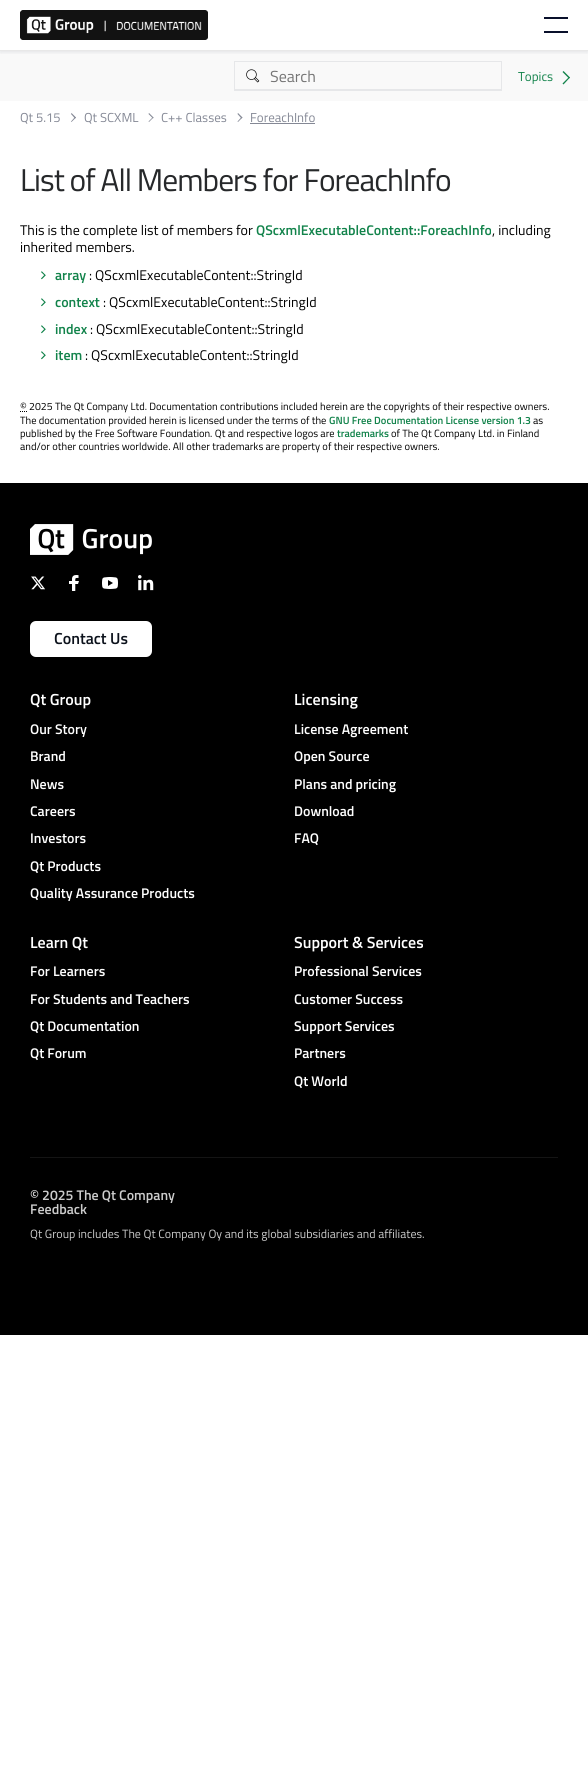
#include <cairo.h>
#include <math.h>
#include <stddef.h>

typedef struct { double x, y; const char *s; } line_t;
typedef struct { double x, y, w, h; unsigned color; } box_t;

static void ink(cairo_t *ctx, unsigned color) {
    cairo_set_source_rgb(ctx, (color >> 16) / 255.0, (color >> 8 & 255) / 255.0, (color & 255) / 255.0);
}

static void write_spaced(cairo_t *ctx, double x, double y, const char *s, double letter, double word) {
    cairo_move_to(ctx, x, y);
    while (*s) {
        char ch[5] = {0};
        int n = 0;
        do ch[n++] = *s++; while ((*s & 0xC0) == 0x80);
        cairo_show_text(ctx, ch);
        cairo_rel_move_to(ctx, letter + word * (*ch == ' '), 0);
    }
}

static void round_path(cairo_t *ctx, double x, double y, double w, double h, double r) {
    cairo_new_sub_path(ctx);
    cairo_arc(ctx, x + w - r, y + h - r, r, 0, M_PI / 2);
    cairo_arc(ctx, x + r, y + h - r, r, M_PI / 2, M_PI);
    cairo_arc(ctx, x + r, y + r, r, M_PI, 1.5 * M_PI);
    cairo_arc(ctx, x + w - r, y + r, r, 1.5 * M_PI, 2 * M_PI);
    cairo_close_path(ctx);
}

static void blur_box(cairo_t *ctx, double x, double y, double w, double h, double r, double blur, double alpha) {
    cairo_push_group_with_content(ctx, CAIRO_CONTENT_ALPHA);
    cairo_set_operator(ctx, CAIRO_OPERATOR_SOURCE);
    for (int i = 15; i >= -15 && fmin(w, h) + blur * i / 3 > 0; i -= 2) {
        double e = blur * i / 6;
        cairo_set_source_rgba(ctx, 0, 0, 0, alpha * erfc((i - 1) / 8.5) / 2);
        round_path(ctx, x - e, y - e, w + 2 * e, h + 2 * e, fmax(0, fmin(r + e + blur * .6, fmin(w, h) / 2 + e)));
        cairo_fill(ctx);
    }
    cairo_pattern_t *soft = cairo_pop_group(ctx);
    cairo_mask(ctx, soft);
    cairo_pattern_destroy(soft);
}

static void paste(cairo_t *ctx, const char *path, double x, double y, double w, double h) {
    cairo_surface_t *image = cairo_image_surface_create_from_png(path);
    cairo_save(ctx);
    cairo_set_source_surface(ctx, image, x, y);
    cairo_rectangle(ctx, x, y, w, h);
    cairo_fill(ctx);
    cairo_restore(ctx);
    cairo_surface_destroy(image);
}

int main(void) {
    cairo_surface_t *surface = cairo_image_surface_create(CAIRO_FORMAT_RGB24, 588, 1789);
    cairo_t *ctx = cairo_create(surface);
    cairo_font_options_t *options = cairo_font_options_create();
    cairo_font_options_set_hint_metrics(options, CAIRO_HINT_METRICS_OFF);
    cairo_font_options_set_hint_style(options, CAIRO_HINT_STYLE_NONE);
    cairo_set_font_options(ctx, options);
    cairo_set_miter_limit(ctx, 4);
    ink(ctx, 0xFFFFFF);
    cairo_paint(ctx);
    ink(ctx, 0xF9F9F9);
    cairo_rectangle(ctx, 0, 51, 588, 50);
    cairo_fill(ctx);
    cairo_save(ctx);
    cairo_rectangle(ctx, 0, 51, 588, 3);
    cairo_clip(ctx);
    ink(ctx, 0x09102B);
    blur_box(ctx, 0, 1, 588, 51, 0, 2.5, 0.1);
    cairo_restore(ctx);
    ink(ctx, 0xE8E8E8);
    cairo_rectangle(ctx, 0, 50, 588, 1);
    cairo_fill(ctx);
    paste(ctx, "media/1.png", 20, 10, 188, 30);
    ink(ctx, 0x09102B);
    cairo_rectangle(ctx, 544, 17, 24, 2);
    cairo_fill(ctx);
    cairo_rectangle(ctx, 544, 31, 24, 2);
    cairo_fill(ctx);
    paste(ctx, "media/2.png", 246, 69, 14, 14);
    {
        static const box_t items[] = {
            {234, 61, 268, 1, 0xE6E7E9},
            {501, 61, 1, 30, 0xE6E7E9},
            {234, 89, 268, 2, 0xE6E7E9},
            {234, 61, 1, 30, 0xE6E7E9},
        };
        for (size_t i = 0; i < sizeof items / sizeof *items; i++) {
            ink(ctx, items[i].color);
            cairo_rectangle(ctx, items[i].x, items[i].y, items[i].w, items[i].h);
            cairo_fill(ctx);
        }
    }
    cairo_select_font_face(ctx, "Titillium Web", CAIRO_FONT_SLANT_NORMAL, CAIRO_FONT_WEIGHT_NORMAL);
    cairo_set_font_size(ctx, 16);
    ink(ctx, 0x757575);
    cairo_move_to(ctx, 270, 82);
    cairo_show_text(ctx, "Search");
    cairo_set_font_size(ctx, 13);
    ink(ctx, 0x848895);
    cairo_move_to(ctx, 20, 122);
    cairo_show_text(ctx, "Qt 5.15");
    cairo_new_path(ctx);
    cairo_move_to(ctx, 71, 114);
    cairo_line_to(ctx, 71.5, 113);
    cairo_line_to(ctx, 76, 117.5);
    cairo_line_to(ctx, 75, 118.5);
    cairo_close_path(ctx);
    cairo_fill(ctx);
    cairo_new_path(ctx);
    cairo_move_to(ctx, 71, 121.5);
    cairo_line_to(ctx, 75, 117);
    cairo_line_to(ctx, 76, 117.5);
    cairo_line_to(ctx, 71.5, 122);
    cairo_close_path(ctx);
    cairo_fill(ctx);
    cairo_move_to(ctx, 84, 122);
    cairo_show_text(ctx, "Qt SCXML");
    cairo_new_path(ctx);
    cairo_move_to(ctx, 148.5, 114);
    cairo_line_to(ctx, 149, 113);
    cairo_line_to(ctx, 153.5, 117.5);
    cairo_line_to(ctx, 153, 118.5);
    cairo_close_path(ctx);
    cairo_fill(ctx);
    cairo_new_path(ctx);
    cairo_move_to(ctx, 148.5, 121.5);
    cairo_line_to(ctx, 153, 117);
    cairo_line_to(ctx, 153.5, 117.5);
    cairo_line_to(ctx, 149, 122);
    cairo_close_path(ctx);
    cairo_fill(ctx);
    cairo_move_to(ctx, 161, 122);
    cairo_show_text(ctx, "C++ Classes");
    cairo_new_path(ctx);
    cairo_move_to(ctx, 237.5, 114);
    cairo_line_to(ctx, 238, 113);
    cairo_line_to(ctx, 242.5, 117.5);
    cairo_line_to(ctx, 241.5, 118.5);
    cairo_close_path(ctx);
    cairo_fill(ctx);
    cairo_new_path(ctx);
    cairo_move_to(ctx, 237.5, 121.5);
    cairo_line_to(ctx, 241.5, 117);
    cairo_line_to(ctx, 242.5, 117.5);
    cairo_line_to(ctx, 238, 122);
    cairo_close_path(ctx);
    cairo_fill(ctx);
    cairo_move_to(ctx, 250, 122);
    cairo_show_text(ctx, "ForeachInfo");
    cairo_rectangle(ctx, 250, 123, 65, 1);
    cairo_fill(ctx);
    cairo_set_font_size(ctx, 31.5);
    ink(ctx, 0x26282A);
    write_spaced(ctx, 20, 191, "List of All Members for ForeachInfo", -1, 0);
    cairo_set_font_size(ctx, 14);
    ink(ctx, 0x000000);
    cairo_move_to(ctx, 20, 235);
    cairo_show_text(ctx, "This is the complete list of members for");
    cairo_select_font_face(ctx, "Titillium Web SemiBold", CAIRO_FONT_SLANT_NORMAL, CAIRO_FONT_WEIGHT_NORMAL);
    ink(ctx, 0x12834B);
    cairo_move_to(ctx, 256, 235);
    cairo_show_text(ctx, "QScxmlExecutableContent::ForeachInfo");
    cairo_select_font_face(ctx, "Titillium Web", CAIRO_FONT_SLANT_NORMAL, CAIRO_FONT_WEIGHT_NORMAL);
    ink(ctx, 0x000000);
    cairo_move_to(ctx, 492, 235);
    cairo_show_text(ctx, ", including");
    cairo_move_to(ctx, 20, 252);
    cairo_show_text(ctx, "inherited members.");
    paste(ctx, "media/3.png", 41, 271, 5, 9);
    cairo_select_font_face(ctx, "Titillium Web SemiBold", CAIRO_FONT_SLANT_NORMAL, CAIRO_FONT_WEIGHT_NORMAL);
    ink(ctx, 0x12834B);
    cairo_move_to(ctx, 55, 280);
    cairo_show_text(ctx, "array");
    cairo_select_font_face(ctx, "Titillium Web", CAIRO_FONT_SLANT_NORMAL, CAIRO_FONT_WEIGHT_NORMAL);
    ink(ctx, 0x000000);
    cairo_move_to(ctx, 89, 280);
    cairo_show_text(ctx, ": QScxmlExecutableContent::StringId");
    paste(ctx, "media/3.png", 41, 298, 5, 9);
    cairo_select_font_face(ctx, "Titillium Web SemiBold", CAIRO_FONT_SLANT_NORMAL, CAIRO_FONT_WEIGHT_NORMAL);
    ink(ctx, 0x12834B);
    cairo_move_to(ctx, 55, 307);
    cairo_show_text(ctx, "context");
    cairo_select_font_face(ctx, "Titillium Web", CAIRO_FONT_SLANT_NORMAL, CAIRO_FONT_WEIGHT_NORMAL);
    ink(ctx, 0x000000);
    cairo_move_to(ctx, 103, 307);
    cairo_show_text(ctx, ": QScxmlExecutableContent::StringId");
    paste(ctx, "media/3.png", 41, 325, 5, 9);
    cairo_select_font_face(ctx, "Titillium Web SemiBold", CAIRO_FONT_SLANT_NORMAL, CAIRO_FONT_WEIGHT_NORMAL);
    ink(ctx, 0x12834B);
    cairo_move_to(ctx, 55, 334);
    cairo_show_text(ctx, "index");
    cairo_select_font_face(ctx, "Titillium Web", CAIRO_FONT_SLANT_NORMAL, CAIRO_FONT_WEIGHT_NORMAL);
    ink(ctx, 0x000000);
    cairo_move_to(ctx, 90, 334);
    cairo_show_text(ctx, ": QScxmlExecutableContent::StringId");
    paste(ctx, "media/3.png", 41, 351, 5, 9);
    cairo_select_font_face(ctx, "Titillium Web SemiBold", CAIRO_FONT_SLANT_NORMAL, CAIRO_FONT_WEIGHT_NORMAL);
    ink(ctx, 0x12834B);
    cairo_move_to(ctx, 55, 360);
    cairo_show_text(ctx, "item");
    cairo_select_font_face(ctx, "Titillium Web", CAIRO_FONT_SLANT_NORMAL, CAIRO_FONT_WEIGHT_NORMAL);
    ink(ctx, 0x000000);
    cairo_move_to(ctx, 85, 360);
    cairo_show_text(ctx, ": QScxmlExecutableContent::StringId");
    cairo_new_path(ctx);
    cairo_move_to(ctx, 20, 411.5);
    cairo_line_to(ctx, 21, 411.5);
    cairo_move_to(ctx, 22, 411.5);
    cairo_line_to(ctx, 23, 411.5);
    cairo_move_to(ctx, 24, 411.5);
    cairo_line_to(ctx, 25, 411.5);
    cairo_move_to(ctx, 26, 411.5);
    cairo_line_to(ctx, 27, 411.5);
    cairo_set_line_width(ctx, 1);
    cairo_stroke(ctx);
    cairo_set_font_size(ctx, 10.5);
    cairo_move_to(ctx, 20, 410);
    cairo_show_text(ctx, "© 2025 The Qt Company Ltd. Documentation contributions included herein are the copyrights of their respective owners.");
    cairo_move_to(ctx, 20, 424);
    cairo_show_text(ctx, "The documentation provided herein is licensed under the terms of the");
    cairo_select_font_face(ctx, "Titillium Web SemiBold", CAIRO_FONT_SLANT_NORMAL, CAIRO_FONT_WEIGHT_NORMAL);
    ink(ctx, 0x12834B);
    cairo_move_to(ctx, 329, 424);
    cairo_show_text(ctx, "GNU Free Documentation License version 1.3");
    cairo_select_font_face(ctx, "Titillium Web", CAIRO_FONT_SLANT_NORMAL, CAIRO_FONT_WEIGHT_NORMAL);
    ink(ctx, 0x000000);
    cairo_move_to(ctx, 533, 424);
    cairo_show_text(ctx, "as");
    cairo_move_to(ctx, 20, 437);
    cairo_show_text(ctx, "published by the Free Software Foundation. Qt and respective logos are");
    cairo_select_font_face(ctx, "Titillium Web SemiBold", CAIRO_FONT_SLANT_NORMAL, CAIRO_FONT_WEIGHT_NORMAL);
    ink(ctx, 0x12834B);
    cairo_move_to(ctx, 337, 437);
    cairo_show_text(ctx, "trademarks");
    cairo_select_font_face(ctx, "Titillium Web", CAIRO_FONT_SLANT_NORMAL, CAIRO_FONT_WEIGHT_NORMAL);
    ink(ctx, 0x000000);
    cairo_move_to(ctx, 391, 437);
    cairo_show_text(ctx, "of The Qt Company Ltd. in Finland");
    cairo_move_to(ctx, 20, 450);
    cairo_show_text(ctx, "and/or other countries worldwide. All other trademarks are property of their respective owners.");
    cairo_set_font_size(ctx, 13);
    ink(ctx, 0x12834B);
    cairo_move_to(ctx, 518, 81);
    cairo_show_text(ctx, "Topics");
    cairo_new_path(ctx);
    cairo_move_to(ctx, 562.5, 72);
    cairo_line_to(ctx, 563.5, 71);
    cairo_line_to(ctx, 570, 77.5);
    cairo_line_to(ctx, 569, 78.5);
    cairo_close_path(ctx);
    cairo_fill(ctx);
    cairo_new_path(ctx);
    cairo_move_to(ctx, 562.5, 83.5);
    cairo_line_to(ctx, 569, 77);
    cairo_line_to(ctx, 570, 77.5);
    cairo_line_to(ctx, 563.5, 84.5);
    cairo_close_path(ctx);
    cairo_fill(ctx);
    ink(ctx, 0x000000);
    cairo_rectangle(ctx, 0, 483, 588, 852);
    cairo_fill(ctx);
    paste(ctx, "media/4.png", 30, 524, 122, 31);
    paste(ctx, "media/5.png", 31, 576, 14, 14);
    paste(ctx, "media/6.png", 69, 575, 10, 16);
    paste(ctx, "media/7.png", 102, 577, 16, 12);
    paste(ctx, "media/8.png", 138, 575, 16, 16);
    ink(ctx, 0xFFFFFF);
    round_path(ctx, 30, 621, 122, 36, 6);
    cairo_fill(ctx);
    cairo_select_font_face(ctx, "Titillium Web SemiBold", CAIRO_FONT_SLANT_NORMAL, CAIRO_FONT_WEIGHT_NORMAL);
    cairo_set_font_size(ctx, 16);
    ink(ctx, 0x0C121C);
    cairo_move_to(ctx, 54, 644);
    cairo_show_text(ctx, "Contact Us");
    ink(ctx, 0xFFFFFF);
    cairo_move_to(ctx, 30, 705);
    cairo_show_text(ctx, "Qt Group");
    cairo_set_font_size(ctx, 14);
    {
        static const line_t items[] = {
            {30, 734, "Our Story"},
            {30, 761, "Brand"},
            {30, 789, "News"},
            {30, 816, "Careers"},
            {30, 843, "Investors"},
            {30, 871, "Qt Products"},
            {30, 898, "Quality Assurance Products"},
        };
        for (size_t i = 0; i < sizeof items / sizeof *items; i++) {
            cairo_move_to(ctx, items[i].x, items[i].y);
            cairo_show_text(ctx, items[i].s);
        }
    }
    cairo_set_font_size(ctx, 16);
    cairo_move_to(ctx, 294, 705);
    cairo_show_text(ctx, "Licensing");
    cairo_set_font_size(ctx, 14);
    {
        static const line_t items[] = {
            {294, 734, "License Agreement"},
            {294, 761, "Open Source"},
            {294, 789, "Plans and pricing"},
            {294, 816, "Download"},
            {294, 843, "FAQ"},
        };
        for (size_t i = 0; i < sizeof items / sizeof *items; i++) {
            cairo_move_to(ctx, items[i].x, items[i].y);
            cairo_show_text(ctx, items[i].s);
        }
    }
    cairo_set_font_size(ctx, 16);
    cairo_move_to(ctx, 30, 948);
    cairo_show_text(ctx, "Learn Qt");
    cairo_set_font_size(ctx, 14);
    {
        static const line_t items[] = {
            {30, 976, "For Learners"},
            {30, 1004, "For Students and Teachers"},
            {30, 1031, "Qt Documentation"},
            {30, 1058, "Qt Forum"},
        };
        for (size_t i = 0; i < sizeof items / sizeof *items; i++) {
            cairo_move_to(ctx, items[i].x, items[i].y);
            cairo_show_text(ctx, items[i].s);
        }
    }
    cairo_set_font_size(ctx, 16);
    cairo_move_to(ctx, 294, 948);
    cairo_show_text(ctx, "Support & Services");
    cairo_set_font_size(ctx, 14);
    {
        static const line_t items[] = {
            {294, 976, "Professional Services"},
            {294, 1004, "Customer Success"},
            {294, 1031, "Support Services"},
            {294, 1058, "Partners"},
            {294, 1086, "Qt World"},
        };
        for (size_t i = 0; i < sizeof items / sizeof *items; i++) {
            cairo_move_to(ctx, items[i].x, items[i].y);
            cairo_show_text(ctx, items[i].s);
        }
    }
    ink(ctx, 0x141414);
    cairo_rectangle(ctx, 30, 1157, 528, 1);
    cairo_fill(ctx);
    ink(ctx, 0xCCCCCC);
    cairo_move_to(ctx, 30, 1200);
    cairo_show_text(ctx, "© 2025 The Qt Company");
    cairo_move_to(ctx, 30, 1214);
    cairo_show_text(ctx, "Feedback");
    cairo_select_font_face(ctx, "Titillium Web", CAIRO_FONT_SLANT_NORMAL, CAIRO_FONT_WEIGHT_NORMAL);
    cairo_set_font_size(ctx, 12);
    cairo_move_to(ctx, 30, 1238);
    cairo_show_text(ctx, "Qt Group includes The Qt Company Oy and its global subsidiaries and affiliates.");
    cairo_surface_write_to_png(surface, "image.png");
    cairo_font_options_destroy(options);
    cairo_destroy(ctx);
    cairo_surface_destroy(surface);
    return 0;
}
